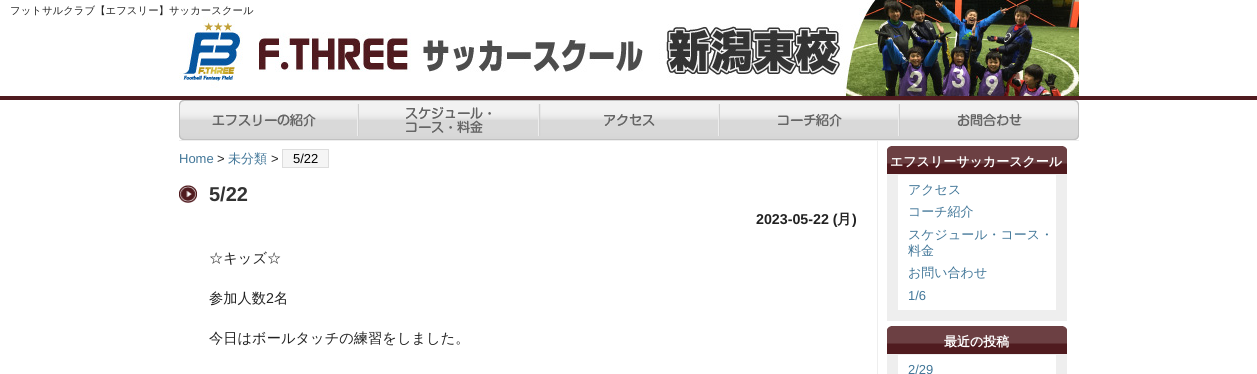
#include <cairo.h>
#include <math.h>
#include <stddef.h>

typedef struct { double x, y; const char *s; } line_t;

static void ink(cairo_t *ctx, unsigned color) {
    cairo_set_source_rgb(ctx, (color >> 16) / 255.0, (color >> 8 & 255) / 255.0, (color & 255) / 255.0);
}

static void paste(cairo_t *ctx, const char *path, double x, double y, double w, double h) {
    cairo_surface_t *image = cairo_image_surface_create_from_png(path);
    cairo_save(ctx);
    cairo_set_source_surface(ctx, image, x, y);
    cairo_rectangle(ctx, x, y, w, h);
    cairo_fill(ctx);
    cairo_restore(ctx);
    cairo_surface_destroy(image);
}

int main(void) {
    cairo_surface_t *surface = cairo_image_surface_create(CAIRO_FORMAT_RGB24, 1257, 374);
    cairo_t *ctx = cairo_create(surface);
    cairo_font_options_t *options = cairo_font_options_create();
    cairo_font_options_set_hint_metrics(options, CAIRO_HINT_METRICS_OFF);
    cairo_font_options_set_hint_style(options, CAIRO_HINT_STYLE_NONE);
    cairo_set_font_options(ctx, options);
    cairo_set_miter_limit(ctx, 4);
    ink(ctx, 0xFFFFFF);
    cairo_paint(ctx);
    ink(ctx, 0x501B1F);
    cairo_rectangle(ctx, 0, 96, 1257, 4);
    cairo_fill(ctx);
    paste(ctx, "media/1.png", 179, 0, 900, 96);
    cairo_select_font_face(ctx, "WenQuanYi Zen Hei Medium", CAIRO_FONT_SLANT_NORMAL, CAIRO_FONT_WEIGHT_NORMAL);
    cairo_set_font_size(ctx, 10.4);
    ink(ctx, 0x222222);
    cairo_move_to(ctx, 10, 14);
    cairo_show_text(ctx, "フットサルクラブ【エフスリー】サッカースクール");
    paste(ctx, "media/2.png", 179, 100, 180, 40);
    paste(ctx, "media/3.png", 359, 100, 180, 40);
    paste(ctx, "media/4.png", 539, 100, 180, 40);
    paste(ctx, "media/5.png", 719, 100, 180, 40);
    paste(ctx, "media/6.png", 899, 100, 180, 40);
    ink(ctx, 0xEEEEEE);
    cairo_rectangle(ctx, 179, 140, 900, 1);
    cairo_fill(ctx);
    cairo_rectangle(ctx, 877, 141, 1, 233);
    cairo_fill(ctx);
    cairo_select_font_face(ctx, "Liberation Sans", CAIRO_FONT_SLANT_NORMAL, CAIRO_FONT_WEIGHT_NORMAL);
    cairo_set_font_size(ctx, 13);
    ink(ctx, 0x417698);
    cairo_move_to(ctx, 179, 163);
    cairo_show_text(ctx, "Home");
    ink(ctx, 0x222222);
    cairo_move_to(ctx, 217, 163);
    cairo_show_text(ctx, ">");
    cairo_select_font_face(ctx, "WenQuanYi Zen Hei Medium", CAIRO_FONT_SLANT_NORMAL, CAIRO_FONT_WEIGHT_NORMAL);
    ink(ctx, 0x417698);
    cairo_move_to(ctx, 228, 163);
    cairo_show_text(ctx, "未分類");
    cairo_select_font_face(ctx, "Liberation Sans", CAIRO_FONT_SLANT_NORMAL, CAIRO_FONT_WEIGHT_NORMAL);
    ink(ctx, 0x222222);
    cairo_move_to(ctx, 271, 163);
    cairo_show_text(ctx, ">");
    ink(ctx, 0xF5F5F5);
    cairo_rectangle(ctx, 282.5, 149.5, 46, 18);
    cairo_fill_preserve(ctx);
    ink(ctx, 0xDDDDDD);
    cairo_set_line_width(ctx, 1);
    cairo_stroke(ctx);
    ink(ctx, 0x000000);
    cairo_move_to(ctx, 293, 163);
    cairo_show_text(ctx, "5/22");
    paste(ctx, "media/7.png", 179, 185, 18, 18);
    cairo_select_font_face(ctx, "Liberation Sans", CAIRO_FONT_SLANT_NORMAL, CAIRO_FONT_WEIGHT_BOLD);
    cairo_set_font_size(ctx, 20);
    ink(ctx, 0x333333);
    cairo_move_to(ctx, 209, 201);
    cairo_show_text(ctx, "5/22");
    cairo_set_font_size(ctx, 14.25);
    ink(ctx, 0x222222);
    cairo_move_to(ctx, 756, 224);
    cairo_show_text(ctx, "2023-05-22 (");
    cairo_select_font_face(ctx, "WenQuanYi Zen Hei", CAIRO_FONT_SLANT_NORMAL, CAIRO_FONT_WEIGHT_BOLD);
    cairo_move_to(ctx, 837, 224);
    cairo_show_text(ctx, "月");
    cairo_select_font_face(ctx, "Liberation Sans", CAIRO_FONT_SLANT_NORMAL, CAIRO_FONT_WEIGHT_BOLD);
    cairo_move_to(ctx, 852, 224);
    cairo_show_text(ctx, ")");
    cairo_select_font_face(ctx, "WenQuanYi Zen Hei Medium", CAIRO_FONT_SLANT_NORMAL, CAIRO_FONT_WEIGHT_NORMAL);
    cairo_move_to(ctx, 209, 263);
    cairo_show_text(ctx, "☆キッズ☆");
    cairo_move_to(ctx, 209, 303);
    cairo_show_text(ctx, "参加人数");
    cairo_select_font_face(ctx, "Liberation Sans", CAIRO_FONT_SLANT_NORMAL, CAIRO_FONT_WEIGHT_NORMAL);
    cairo_move_to(ctx, 266, 303);
    cairo_show_text(ctx, "2");
    cairo_select_font_face(ctx, "WenQuanYi Zen Hei Medium", CAIRO_FONT_SLANT_NORMAL, CAIRO_FONT_WEIGHT_NORMAL);
    cairo_move_to(ctx, 274, 303);
    cairo_show_text(ctx, "名");
    cairo_move_to(ctx, 209, 343);
    cairo_show_text(ctx, "今日はボールタッチの練習をしました。");
    paste(ctx, "media/8.png", 887, 146, 180, 28);
    cairo_select_font_face(ctx, "WenQuanYi Zen Hei", CAIRO_FONT_SLANT_NORMAL, CAIRO_FONT_WEIGHT_BOLD);
    cairo_set_font_size(ctx, 13);
    ink(ctx, 0xFFFFFF);
    cairo_move_to(ctx, 890, 166);
    cairo_show_text(ctx, "エフスリーサッカースクール");
    ink(ctx, 0xEEEEEE);
    cairo_rectangle(ctx, 887, 174, 180, 147);
    cairo_fill(ctx);
    ink(ctx, 0xFFFFFF);
    cairo_rectangle(ctx, 898, 175, 158, 135);
    cairo_fill(ctx);
    cairo_select_font_face(ctx, "WenQuanYi Zen Hei Medium", CAIRO_FONT_SLANT_NORMAL, CAIRO_FONT_WEIGHT_NORMAL);
    ink(ctx, 0x417698);
    {
        static const line_t items[] = {
            {908, 194, "アクセス"},
            {908, 216, "コーチ紹介"},
            {908, 239, "スケジュール・コース・"},
            {908, 255, "料金"},
            {908, 277, "お問い合わせ"},
        };
        for (size_t i = 0; i < sizeof items / sizeof *items; i++) {
            cairo_move_to(ctx, items[i].x, items[i].y);
            cairo_show_text(ctx, items[i].s);
        }
    }
    cairo_select_font_face(ctx, "Liberation Sans", CAIRO_FONT_SLANT_NORMAL, CAIRO_FONT_WEIGHT_NORMAL);
    cairo_move_to(ctx, 908, 300);
    cairo_show_text(ctx, "1/6");
    paste(ctx, "media/8.png", 887, 326, 180, 28);
    cairo_select_font_face(ctx, "WenQuanYi Zen Hei", CAIRO_FONT_SLANT_NORMAL, CAIRO_FONT_WEIGHT_BOLD);
    ink(ctx, 0xFFFFFF);
    cairo_move_to(ctx, 944, 346);
    cairo_show_text(ctx, "最近の投稿");
    ink(ctx, 0xEEEEEE);
    cairo_rectangle(ctx, 887, 354, 180, 20);
    cairo_fill(ctx);
    ink(ctx, 0xFFFFFF);
    cairo_rectangle(ctx, 898, 355, 158, 19);
    cairo_fill(ctx);
    cairo_select_font_face(ctx, "Liberation Sans", CAIRO_FONT_SLANT_NORMAL, CAIRO_FONT_WEIGHT_NORMAL);
    ink(ctx, 0x417698);
    cairo_move_to(ctx, 908, 374);
    cairo_show_text(ctx, "2/29");
    cairo_surface_write_to_png(surface, "image.png");
    cairo_font_options_destroy(options);
    cairo_destroy(ctx);
    cairo_surface_destroy(surface);
    return 0;
}
